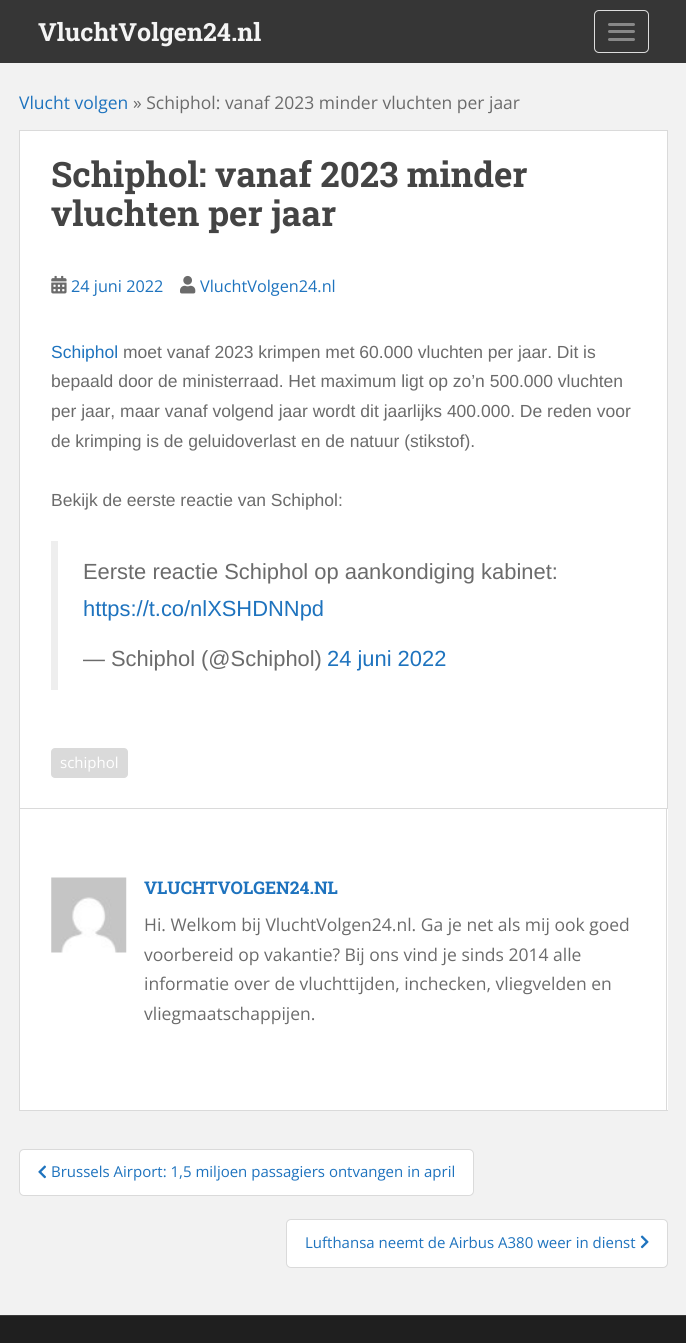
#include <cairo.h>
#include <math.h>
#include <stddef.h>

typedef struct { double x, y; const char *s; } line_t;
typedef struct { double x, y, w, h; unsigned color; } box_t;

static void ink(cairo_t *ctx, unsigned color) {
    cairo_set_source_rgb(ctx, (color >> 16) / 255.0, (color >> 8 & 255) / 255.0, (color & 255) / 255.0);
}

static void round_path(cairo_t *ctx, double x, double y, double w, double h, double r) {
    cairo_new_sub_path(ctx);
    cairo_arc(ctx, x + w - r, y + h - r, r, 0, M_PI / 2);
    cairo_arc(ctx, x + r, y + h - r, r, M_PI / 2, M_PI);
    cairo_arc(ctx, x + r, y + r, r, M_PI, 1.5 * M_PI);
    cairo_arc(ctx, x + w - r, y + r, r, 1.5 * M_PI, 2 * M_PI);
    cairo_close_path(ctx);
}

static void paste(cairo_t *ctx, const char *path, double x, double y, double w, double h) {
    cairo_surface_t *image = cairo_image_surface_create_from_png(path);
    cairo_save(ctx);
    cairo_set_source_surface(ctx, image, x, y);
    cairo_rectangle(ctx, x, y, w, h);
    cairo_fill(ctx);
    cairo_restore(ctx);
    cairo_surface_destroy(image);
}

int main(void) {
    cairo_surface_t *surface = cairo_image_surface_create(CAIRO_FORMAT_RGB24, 686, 1343);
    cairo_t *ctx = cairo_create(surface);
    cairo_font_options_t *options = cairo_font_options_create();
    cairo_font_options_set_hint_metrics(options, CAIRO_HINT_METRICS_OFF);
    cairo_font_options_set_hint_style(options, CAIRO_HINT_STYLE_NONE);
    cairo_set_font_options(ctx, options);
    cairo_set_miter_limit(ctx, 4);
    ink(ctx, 0xF2F2F2);
    cairo_paint(ctx);
    ink(ctx, 0x363636);
    cairo_rectangle(ctx, 0, 0, 686, 63);
    cairo_fill(ctx);
    cairo_select_font_face(ctx, "Roboto Slab", CAIRO_FONT_SLANT_NORMAL, CAIRO_FONT_WEIGHT_BOLD);
    cairo_set_font_size(ctx, 25);
    ink(ctx, 0xF4F4F4);
    cairo_move_to(ctx, 38, 41);
    cairo_show_text(ctx, "VluchtVolgen24.nl");
    round_path(ctx, 594.5, 10.5, 54, 42, 4.5);
    ink(ctx, 0xDDDDDD);
    cairo_set_line_width(ctx, 1);
    cairo_stroke(ctx);
    ink(ctx, 0x888888);
    round_path(ctx, 608, 23, 27, 3, 1.5);
    cairo_fill(ctx);
    round_path(ctx, 608, 30, 27, 3, 1.5);
    cairo_fill(ctx);
    round_path(ctx, 608, 38, 27, 3, 1.5);
    cairo_fill(ctx);
    cairo_select_font_face(ctx, "Open Sans", CAIRO_FONT_SLANT_NORMAL, CAIRO_FONT_WEIGHT_NORMAL);
    cairo_set_font_size(ctx, 17.5);
    ink(ctx, 0x1E73BE);
    cairo_move_to(ctx, 19, 109);
    cairo_show_text(ctx, "Vlucht volgen");
    ink(ctx, 0x6B6B6B);
    cairo_move_to(ctx, 133, 109);
    cairo_show_text(ctx, "» Schiphol: vanaf 2023 minder vluchten per jaar");
    ink(ctx, 0xFFFFFF);
    cairo_rectangle(ctx, 19.5, 130.5, 648, 678);
    cairo_fill_preserve(ctx);
    ink(ctx, 0xDADADA);
    cairo_stroke(ctx);
    cairo_select_font_face(ctx, "Roboto Slab", CAIRO_FONT_SLANT_NORMAL, CAIRO_FONT_WEIGHT_BOLD);
    cairo_set_font_size(ctx, 35);
    ink(ctx, 0x444444);
    cairo_move_to(ctx, 51, 187);
    cairo_show_text(ctx, "Schiphol: vanaf 2023 minder");
    cairo_move_to(ctx, 51, 226);
    cairo_show_text(ctx, "vluchten per jaar");
    paste(ctx, "media/1.png", 51, 275, 16, 19);
    cairo_select_font_face(ctx, "Open Sans", CAIRO_FONT_SLANT_NORMAL, CAIRO_FONT_WEIGHT_NORMAL);
    cairo_set_font_size(ctx, 16.25);
    ink(ctx, 0x1E73BE);
    cairo_move_to(ctx, 71, 292);
    cairo_show_text(ctx, "24 juni 2022");
    paste(ctx, "media/2.png", 180, 275, 16, 19);
    cairo_move_to(ctx, 200, 292);
    cairo_show_text(ctx, "VluchtVolgen24.nl");
    cairo_select_font_face(ctx, "Liberation Sans", CAIRO_FONT_SLANT_NORMAL, CAIRO_FONT_WEIGHT_NORMAL);
    cairo_set_font_size(ctx, 17.5);
    cairo_move_to(ctx, 51, 358);
    cairo_show_text(ctx, "Schiphol");
    ink(ctx, 0x6B6B6B);
    {
        static const line_t items[] = {
            {123, 358, "moet vanaf 2023 krimpen met 60.000 vluchten per jaar. Dit is"},
            {51, 387, "bepaald door de ministerraad. Het maximum ligt op zo’n 500.000 vluchten"},
            {51, 417, "per jaar, maar vanaf volgend jaar wordt dit jaarlijks 400.000. De reden voor"},
            {51, 447, "de krimping is de geluidoverlast en de natuur (stikstof)."},
            {51, 506, "Bekijk de eerste reactie van Schiphol:"},
        };
        for (size_t i = 0; i < sizeof items / sizeof *items; i++) {
            cairo_move_to(ctx, items[i].x, items[i].y);
            cairo_show_text(ctx, items[i].s);
        }
    }
    ink(ctx, 0xEEEEEE);
    cairo_rectangle(ctx, 51, 541, 7, 149);
    cairo_fill(ctx);
    cairo_set_font_size(ctx, 21.9);
    ink(ctx, 0x6B6B6B);
    cairo_move_to(ctx, 83, 579);
    cairo_show_text(ctx, "Eerste reactie Schiphol op aankondiging kabinet:");
    ink(ctx, 0x1E73BE);
    cairo_move_to(ctx, 83, 616);
    cairo_show_text(ctx, "https://t.co/nlXSHDNNpd");
    ink(ctx, 0x6B6B6B);
    cairo_move_to(ctx, 83, 666);
    cairo_show_text(ctx, "— Schiphol (@Schiphol)");
    ink(ctx, 0x1E73BE);
    cairo_move_to(ctx, 327, 666);
    cairo_show_text(ctx, "24 juni 2022");
    ink(ctx, 0xDADADA);
    round_path(ctx, 51, 748, 77, 30, 4);
    cairo_fill(ctx);
    cairo_select_font_face(ctx, "Open Sans", CAIRO_FONT_SLANT_NORMAL, CAIRO_FONT_WEIGHT_NORMAL);
    cairo_set_font_size(ctx, 15);
    ink(ctx, 0xFFFFFF);
    cairo_move_to(ctx, 60, 768);
    cairo_show_text(ctx, "schiphol");
    {
        static const box_t items[] = {
            {20, 809, 648, 301, 0xFFFFFF},
            {666, 809, 1, 302, 0xDADADA},
            {19, 1110, 649, 1, 0xDADADA},
            {19, 809, 1, 302, 0xDADADA},
        };
        for (size_t i = 0; i < sizeof items / sizeof *items; i++) {
            ink(ctx, items[i].color);
            cairo_rectangle(ctx, items[i].x, items[i].y, items[i].w, items[i].h);
            cairo_fill(ctx);
        }
    }
    paste(ctx, "media/3.png", 51, 877, 76, 76);
    cairo_select_font_face(ctx, "Roboto Slab", CAIRO_FONT_SLANT_NORMAL, CAIRO_FONT_WEIGHT_BOLD);
    cairo_set_font_size(ctx, 17.5);
    ink(ctx, 0x1E73BE);
    cairo_move_to(ctx, 144, 894);
    cairo_show_text(ctx, "VLUCHTVOLGEN24.NL");
    cairo_select_font_face(ctx, "Open Sans", CAIRO_FONT_SLANT_NORMAL, CAIRO_FONT_WEIGHT_NORMAL);
    ink(ctx, 0x6B6B6B);
    {
        static const line_t items[] = {
            {144, 931, "Hi. Welkom bij VluchtVolgen24.nl. Ga je net als mij ook goed"},
            {144, 961, "voorbereid op vakantie? Bij ons vind je sinds 2014 alle"},
            {144, 990, "informatie over de vluchttijden, inchecken, vliegvelden en"},
            {144, 1020, "vliegmaatschappijen."},
        };
        for (size_t i = 0; i < sizeof items / sizeof *items; i++) {
            cairo_move_to(ctx, items[i].x, items[i].y);
            cairo_show_text(ctx, items[i].s);
        }
    }
    ink(ctx, 0xFFFFFF);
    round_path(ctx, 19.5, 1149.5, 454, 46, 4.5);
    cairo_fill_preserve(ctx);
    ink(ctx, 0xDADADA);
    cairo_stroke(ctx);
    paste(ctx, "media/4.png", 38, 1165, 8, 14);
    cairo_set_font_size(ctx, 15);
    ink(ctx, 0x1E73BE);
    cairo_move_to(ctx, 51, 1177);
    cairo_show_text(ctx, "Brussels Airport: 1,5 miljoen passagiers ontvangen in april");
    ink(ctx, 0xFFFFFF);
    round_path(ctx, 286.5, 1219.5, 381, 48, 4.5);
    cairo_fill_preserve(ctx);
    ink(ctx, 0xDADADA);
    cairo_stroke(ctx);
    ink(ctx, 0x1E73BE);
    cairo_move_to(ctx, 305, 1248);
    cairo_show_text(ctx, "Lufthansa neemt de Airbus A380 weer in dienst");
    paste(ctx, "media/5.png", 640, 1235, 9, 14);
    ink(ctx, 0x1F1F1F);
    cairo_rectangle(ctx, 0, 1316, 686, 27);
    cairo_fill(ctx);
    ink(ctx, 0x3A3A3A);
    cairo_rectangle(ctx, 0, 1315, 686, 1);
    cairo_fill(ctx);
    cairo_surface_write_to_png(surface, "image.png");
    cairo_font_options_destroy(options);
    cairo_destroy(ctx);
    cairo_surface_destroy(surface);
    return 0;
}
